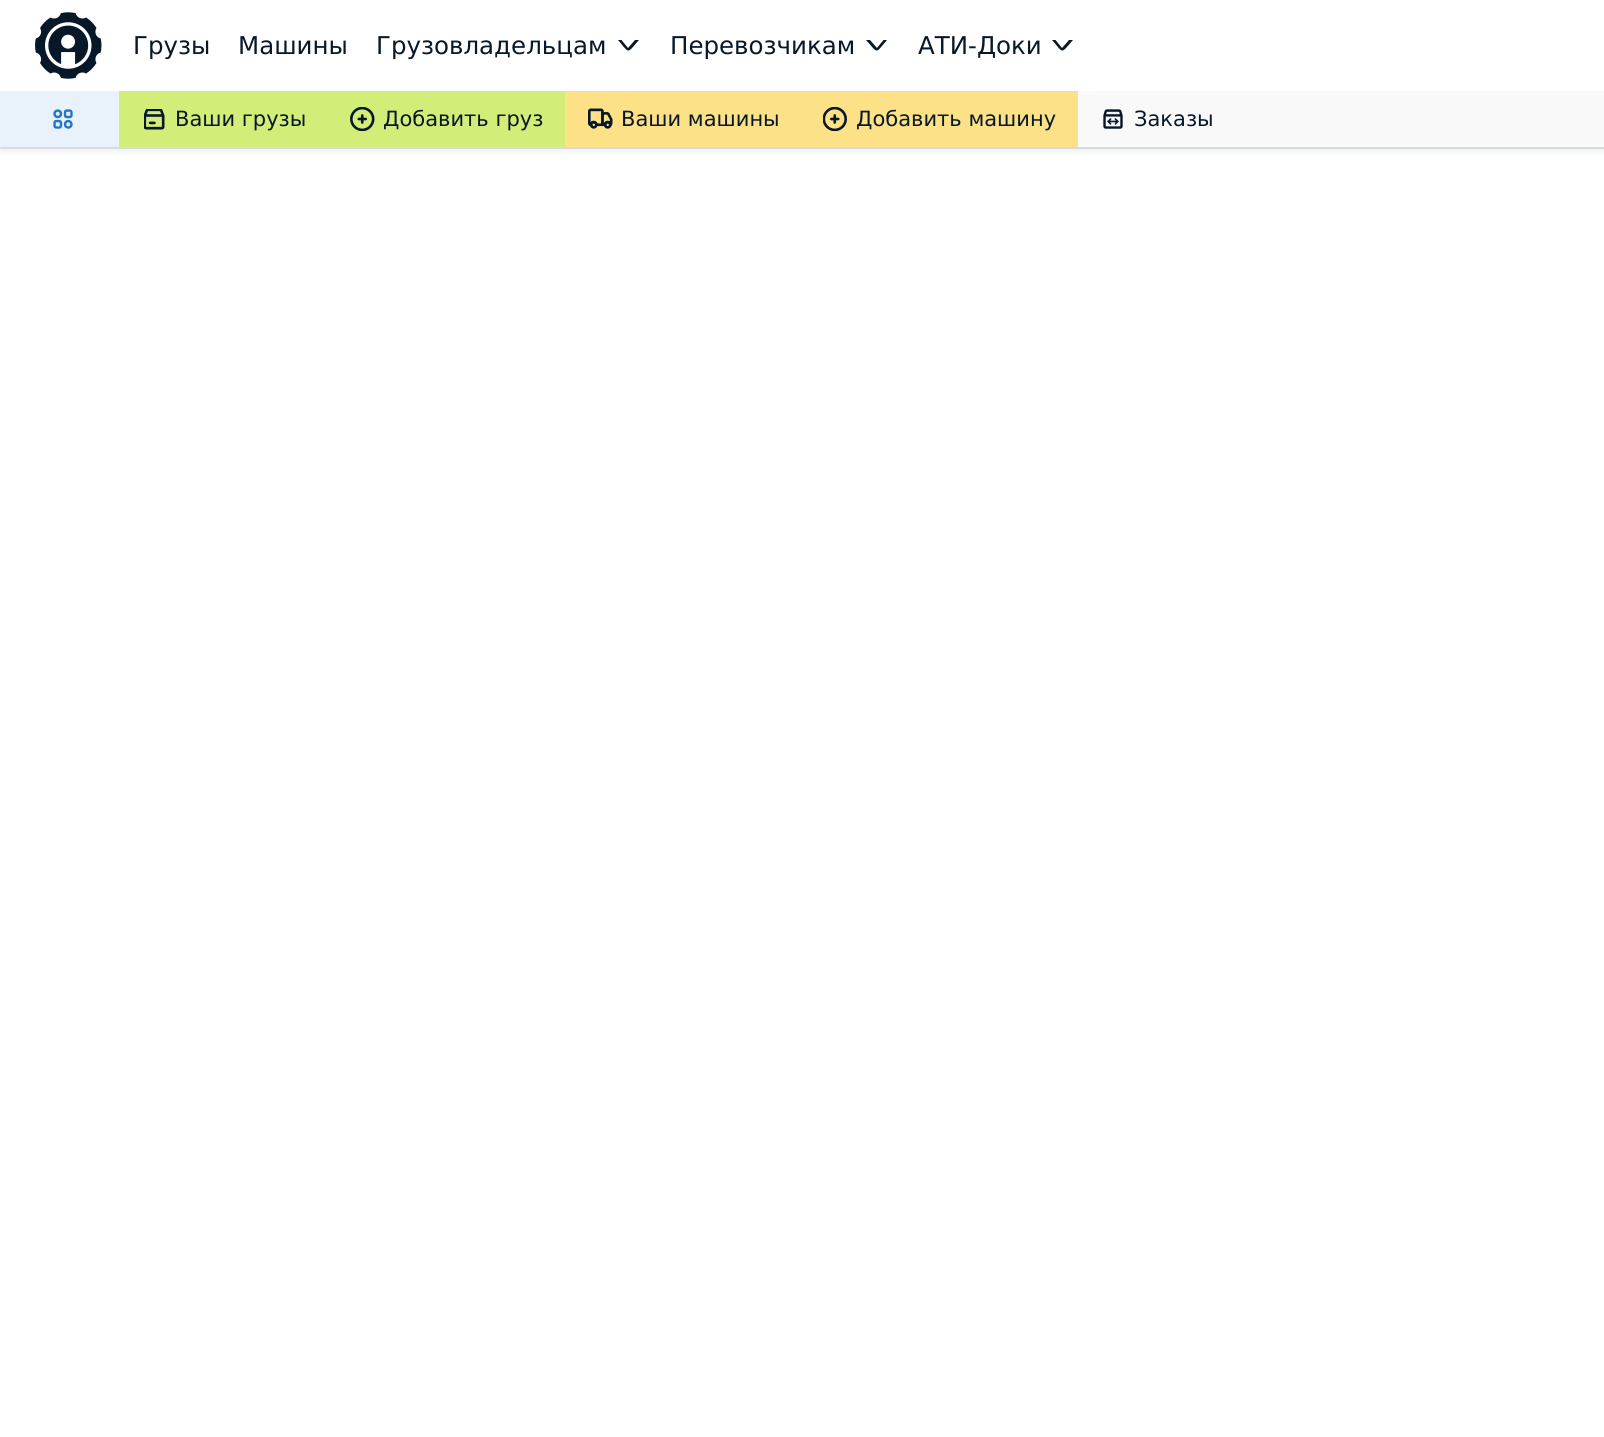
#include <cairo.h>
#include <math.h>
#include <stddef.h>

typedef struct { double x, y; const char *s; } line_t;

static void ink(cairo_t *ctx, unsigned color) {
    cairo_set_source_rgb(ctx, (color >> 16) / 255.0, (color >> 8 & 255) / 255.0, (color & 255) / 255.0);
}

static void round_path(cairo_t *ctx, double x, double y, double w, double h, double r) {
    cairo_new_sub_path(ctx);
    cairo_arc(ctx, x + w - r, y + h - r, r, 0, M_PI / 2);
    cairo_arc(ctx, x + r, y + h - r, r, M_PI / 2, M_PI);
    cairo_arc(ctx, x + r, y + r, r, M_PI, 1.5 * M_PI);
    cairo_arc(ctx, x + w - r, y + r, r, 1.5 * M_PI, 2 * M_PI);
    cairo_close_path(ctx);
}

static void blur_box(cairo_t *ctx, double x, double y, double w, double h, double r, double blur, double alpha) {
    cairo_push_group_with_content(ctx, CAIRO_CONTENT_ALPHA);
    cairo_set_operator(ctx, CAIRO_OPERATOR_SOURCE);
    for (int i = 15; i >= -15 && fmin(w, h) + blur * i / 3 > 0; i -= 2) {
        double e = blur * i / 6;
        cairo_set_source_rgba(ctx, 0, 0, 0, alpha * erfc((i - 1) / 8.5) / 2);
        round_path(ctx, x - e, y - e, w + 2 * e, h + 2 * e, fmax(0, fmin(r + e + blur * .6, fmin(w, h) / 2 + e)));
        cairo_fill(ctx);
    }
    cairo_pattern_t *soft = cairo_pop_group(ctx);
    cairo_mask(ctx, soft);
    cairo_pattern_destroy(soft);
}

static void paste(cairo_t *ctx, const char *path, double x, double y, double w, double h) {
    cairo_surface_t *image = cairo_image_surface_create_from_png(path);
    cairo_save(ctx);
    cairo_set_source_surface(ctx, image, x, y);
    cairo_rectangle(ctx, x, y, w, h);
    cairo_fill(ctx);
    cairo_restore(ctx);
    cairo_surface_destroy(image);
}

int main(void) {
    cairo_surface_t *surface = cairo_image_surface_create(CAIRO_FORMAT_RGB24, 1604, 1437);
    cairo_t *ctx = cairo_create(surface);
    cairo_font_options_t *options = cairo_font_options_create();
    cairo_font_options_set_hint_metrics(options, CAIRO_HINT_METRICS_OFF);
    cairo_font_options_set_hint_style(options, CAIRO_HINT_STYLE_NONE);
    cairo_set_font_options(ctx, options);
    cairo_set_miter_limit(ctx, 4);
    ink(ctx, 0xFFFFFF);
    cairo_paint(ctx);
    paste(ctx, "media/1.png", 35, 12, 67, 67);
    cairo_select_font_face(ctx, "DejaVu Sans", CAIRO_FONT_SLANT_NORMAL, CAIRO_FONT_WEIGHT_NORMAL);
    cairo_set_font_size(ctx, 24.5);
    ink(ctx, 0x071829);
    {
        static const line_t items[] = {
            {133, 54, "Грузы"},
            {238, 54, "Машины"},
            {376, 54, "Грузовладельцам"},
        };
        for (size_t i = 0; i < sizeof items / sizeof *items; i++) {
            cairo_move_to(ctx, items[i].x, items[i].y);
            cairo_show_text(ctx, items[i].s);
        }
    }
    cairo_set_fill_rule(ctx, CAIRO_FILL_RULE_EVEN_ODD);
    cairo_new_path(ctx);
    cairo_move_to(ctx, 621.5, 40);
    cairo_line_to(ctx, 618, 40);
    cairo_curve_to(ctx, 630, 54, 626.5, 54, 639, 40);
    cairo_line_to(ctx, 635, 40);
    cairo_line_to(ctx, 628, 48);
    cairo_close_path(ctx);
    cairo_fill(ctx);
    cairo_move_to(ctx, 670, 54);
    cairo_show_text(ctx, "Перевозчикам");
    cairo_new_path(ctx);
    cairo_move_to(ctx, 870, 40);
    cairo_line_to(ctx, 866, 40);
    cairo_curve_to(ctx, 878.5, 54, 875, 54, 887, 40);
    cairo_line_to(ctx, 883.5, 40);
    cairo_line_to(ctx, 877, 48);
    cairo_close_path(ctx);
    cairo_fill(ctx);
    cairo_move_to(ctx, 918, 54);
    cairo_show_text(ctx, "АТИ-Доки");
    cairo_new_path(ctx);
    cairo_move_to(ctx, 1055.5, 40);
    cairo_line_to(ctx, 1052, 40);
    cairo_curve_to(ctx, 1064, 54, 1060.5, 54, 1073, 40);
    cairo_line_to(ctx, 1069, 40);
    cairo_line_to(ctx, 1062, 48);
    cairo_close_path(ctx);
    cairo_fill(ctx);
    ink(ctx, 0xE6E8EA);
    cairo_rectangle(ctx, 0, 147, 1604, 2);
    cairo_fill(ctx);
    ink(ctx, 0x071829);
    blur_box(ctx, 0, 95, 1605, 56, 0, 3.5, 0.08);
    ink(ctx, 0xF9F9FA);
    cairo_rectangle(ctx, 1078, 91, 526, 56);
    cairo_fill(ctx);
    ink(ctx, 0xE9F1FA);
    cairo_rectangle(ctx, 0, 91, 119, 56);
    cairo_fill(ctx);
    paste(ctx, "media/2.png", 53, 109, 20, 20);
    ink(ctx, 0xD3EE78);
    cairo_rectangle(ctx, 119, 91, 446, 56);
    cairo_fill(ctx);
    paste(ctx, "media/3.png", 144, 109, 21, 21);
    cairo_set_font_size(ctx, 21);
    ink(ctx, 0x071829);
    cairo_move_to(ctx, 175, 126);
    cairo_show_text(ctx, "Ваши грузы");
    paste(ctx, "media/4.png", 350, 107, 25, 24);
    cairo_move_to(ctx, 383, 126);
    cairo_show_text(ctx, "Добавить груз");
    ink(ctx, 0xFDE186);
    cairo_rectangle(ctx, 565, 91, 513, 56);
    cairo_fill(ctx);
    paste(ctx, "media/5.png", 588, 108, 25, 21);
    ink(ctx, 0x071829);
    cairo_move_to(ctx, 621, 126);
    cairo_show_text(ctx, "Ваши машины");
    paste(ctx, "media/6.png", 823, 107, 24, 24);
    cairo_move_to(ctx, 856, 126);
    cairo_show_text(ctx, "Добавить машину");
    paste(ctx, "media/7.png", 1103, 109, 20, 20);
    cairo_move_to(ctx, 1134, 126);
    cairo_show_text(ctx, "Заказы");
    cairo_surface_write_to_png(surface, "image.png");
    cairo_font_options_destroy(options);
    cairo_destroy(ctx);
    cairo_surface_destroy(surface);
    return 0;
}
